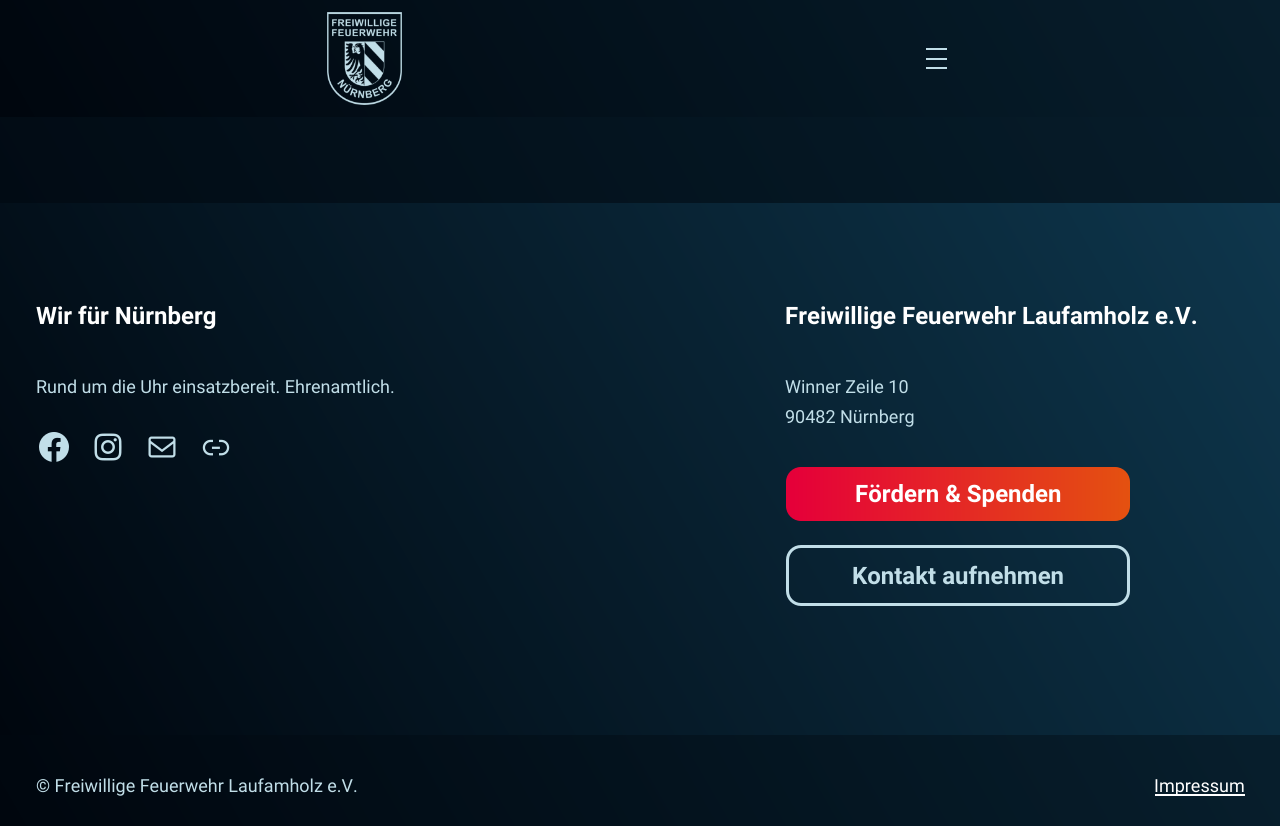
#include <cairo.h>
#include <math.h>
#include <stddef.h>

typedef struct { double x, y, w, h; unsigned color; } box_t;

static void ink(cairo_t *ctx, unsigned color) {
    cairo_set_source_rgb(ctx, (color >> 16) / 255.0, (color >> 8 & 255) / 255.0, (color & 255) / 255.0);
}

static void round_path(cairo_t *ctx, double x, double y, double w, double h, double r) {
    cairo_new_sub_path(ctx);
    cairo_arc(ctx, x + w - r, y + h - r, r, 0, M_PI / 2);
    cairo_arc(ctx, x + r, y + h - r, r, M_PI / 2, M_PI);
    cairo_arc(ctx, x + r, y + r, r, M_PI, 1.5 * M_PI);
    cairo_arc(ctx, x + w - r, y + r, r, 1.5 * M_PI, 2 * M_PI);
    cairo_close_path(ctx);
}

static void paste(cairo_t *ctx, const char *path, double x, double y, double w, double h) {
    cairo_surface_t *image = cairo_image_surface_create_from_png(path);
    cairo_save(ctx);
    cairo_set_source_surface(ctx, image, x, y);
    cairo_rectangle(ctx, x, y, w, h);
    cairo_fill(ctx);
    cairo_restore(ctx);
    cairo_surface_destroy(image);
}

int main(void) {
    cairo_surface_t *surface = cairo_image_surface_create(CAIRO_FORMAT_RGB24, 1280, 826);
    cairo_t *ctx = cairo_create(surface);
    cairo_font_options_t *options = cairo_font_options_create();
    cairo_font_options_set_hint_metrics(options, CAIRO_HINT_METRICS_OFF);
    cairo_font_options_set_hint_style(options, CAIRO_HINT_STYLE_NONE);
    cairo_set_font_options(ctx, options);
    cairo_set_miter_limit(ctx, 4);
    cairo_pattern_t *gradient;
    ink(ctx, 0xFFFFFF);
    cairo_paint(ctx);
    gradient = cairo_pattern_create_linear(-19, 794, 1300, 33);
    cairo_pattern_add_color_stop_rgba(gradient, 0.01, 0, 0.024, 0.055, 1);
    cairo_pattern_add_color_stop_rgba(gradient, 1, 0.027, 0.118, 0.173, 1);
    cairo_set_source(ctx, gradient);
    cairo_pattern_destroy(gradient);
    cairo_rectangle(ctx, 0, 117, 1280, 86);
    cairo_fill(ctx);
    gradient = cairo_pattern_create_linear(135, 350, 1146, -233);
    cairo_pattern_add_color_stop_rgba(gradient, 0.01, 0, 0.024, 0.055, 1);
    cairo_pattern_add_color_stop_rgba(gradient, 1, 0.027, 0.118, 0.173, 1);
    cairo_set_source(ctx, gradient);
    cairo_pattern_destroy(gradient);
    cairo_rectangle(ctx, 0, 0, 1280, 117);
    cairo_fill(ctx);
    paste(ctx, "media/1.png", 327, 12, 75, 93);
    {
        static const box_t items[] = {
            {926, 48, 21, 2, 0xC1DEE8},
            {926, 58, 21, 2, 0xC1DEE8},
            {926, 67, 21, 2, 0xC1DEE8},
        };
        for (size_t i = 0; i < sizeof items / sizeof *items; i++) {
            ink(ctx, items[i].color);
            cairo_rectangle(ctx, items[i].x, items[i].y, items[i].w, items[i].h);
            cairo_fill(ctx);
        }
    }
    gradient = cairo_pattern_create_linear(45, 813, 1236, 125);
    cairo_pattern_add_color_stop_rgba(gradient, 0, 0, 0.024, 0.055, 1);
    cairo_pattern_add_color_stop_rgba(gradient, 1, 0.055, 0.212, 0.298, 1);
    cairo_set_source(ctx, gradient);
    cairo_pattern_destroy(gradient);
    cairo_rectangle(ctx, 0, 203, 1280, 532);
    cairo_fill(ctx);
    cairo_select_font_face(ctx, "Roboto", CAIRO_FONT_SLANT_NORMAL, CAIRO_FONT_WEIGHT_BOLD);
    cairo_set_font_size(ctx, 24);
    ink(ctx, 0xFFFFFF);
    cairo_move_to(ctx, 36, 324);
    cairo_show_text(ctx, "Wir für Nürnberg");
    cairo_select_font_face(ctx, "Roboto", CAIRO_FONT_SLANT_NORMAL, CAIRO_FONT_WEIGHT_NORMAL);
    cairo_set_font_size(ctx, 18);
    ink(ctx, 0xC1DEE8);
    cairo_move_to(ctx, 36, 393);
    cairo_show_text(ctx, "Rund um die Uhr einsatzbereit. Ehrenamtlich.");
    paste(ctx, "media/2.png", 39, 432, 30, 30);
    paste(ctx, "media/3.png", 94, 433, 28, 28);
    paste(ctx, "media/4.png", 148, 436, 28, 22);
    paste(ctx, "media/5.png", 202, 439, 28, 17);
    cairo_select_font_face(ctx, "Roboto", CAIRO_FONT_SLANT_NORMAL, CAIRO_FONT_WEIGHT_BOLD);
    cairo_set_font_size(ctx, 24);
    ink(ctx, 0xFFFFFF);
    cairo_move_to(ctx, 785, 324);
    cairo_show_text(ctx, "Freiwillige Feuerwehr Laufamholz e.V.");
    cairo_select_font_face(ctx, "Roboto", CAIRO_FONT_SLANT_NORMAL, CAIRO_FONT_WEIGHT_NORMAL);
    cairo_set_font_size(ctx, 18);
    ink(ctx, 0xC1DEE8);
    cairo_move_to(ctx, 785, 393);
    cairo_show_text(ctx, "Winner Zeile 10");
    cairo_move_to(ctx, 785, 423);
    cairo_show_text(ctx, "90482 Nürnberg");
    gradient = cairo_pattern_create_linear(786, 494, 1130, 494);
    cairo_pattern_add_color_stop_rgba(gradient, 0.02, 0.898, 0, 0.224, 1);
    cairo_pattern_add_color_stop_rgba(gradient, 1, 0.894, 0.318, 0.063, 1);
    cairo_set_source(ctx, gradient);
    cairo_pattern_destroy(gradient);
    round_path(ctx, 786, 467, 344, 54, 15);
    cairo_fill(ctx);
    cairo_select_font_face(ctx, "Roboto", CAIRO_FONT_SLANT_NORMAL, CAIRO_FONT_WEIGHT_BOLD);
    cairo_set_font_size(ctx, 24);
    ink(ctx, 0xFFFFFF);
    cairo_move_to(ctx, 855, 502);
    cairo_show_text(ctx, "Fördern & Spenden");
    round_path(ctx, 787.5, 546.5, 341, 58, 13.5);
    ink(ctx, 0xC1DEE8);
    cairo_set_line_width(ctx, 3);
    cairo_stroke(ctx);
    cairo_move_to(ctx, 852, 584);
    cairo_show_text(ctx, "Kontakt aufnehmen");
    gradient = cairo_pattern_create_linear(138, 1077, 1143, 496);
    cairo_pattern_add_color_stop_rgba(gradient, 0.01, 0, 0.024, 0.055, 1);
    cairo_pattern_add_color_stop_rgba(gradient, 0.98, 0.027, 0.118, 0.173, 1);
    cairo_set_source(ctx, gradient);
    cairo_pattern_destroy(gradient);
    cairo_rectangle(ctx, 0, 735, 1280, 91);
    cairo_fill(ctx);
    cairo_select_font_face(ctx, "Roboto", CAIRO_FONT_SLANT_NORMAL, CAIRO_FONT_WEIGHT_NORMAL);
    cairo_set_font_size(ctx, 18);
    ink(ctx, 0xC1DEE8);
    cairo_move_to(ctx, 36, 792);
    cairo_show_text(ctx, "© Freiwillige Feuerwehr Laufamholz e.V.");
    ink(ctx, 0xFFFFFF);
    cairo_rectangle(ctx, 1155, 794, 90, 2);
    cairo_fill(ctx);
    cairo_move_to(ctx, 1154, 792);
    cairo_show_text(ctx, "Impressum");
    cairo_surface_write_to_png(surface, "image.png");
    cairo_font_options_destroy(options);
    cairo_destroy(ctx);
    cairo_surface_destroy(surface);
    return 0;
}
